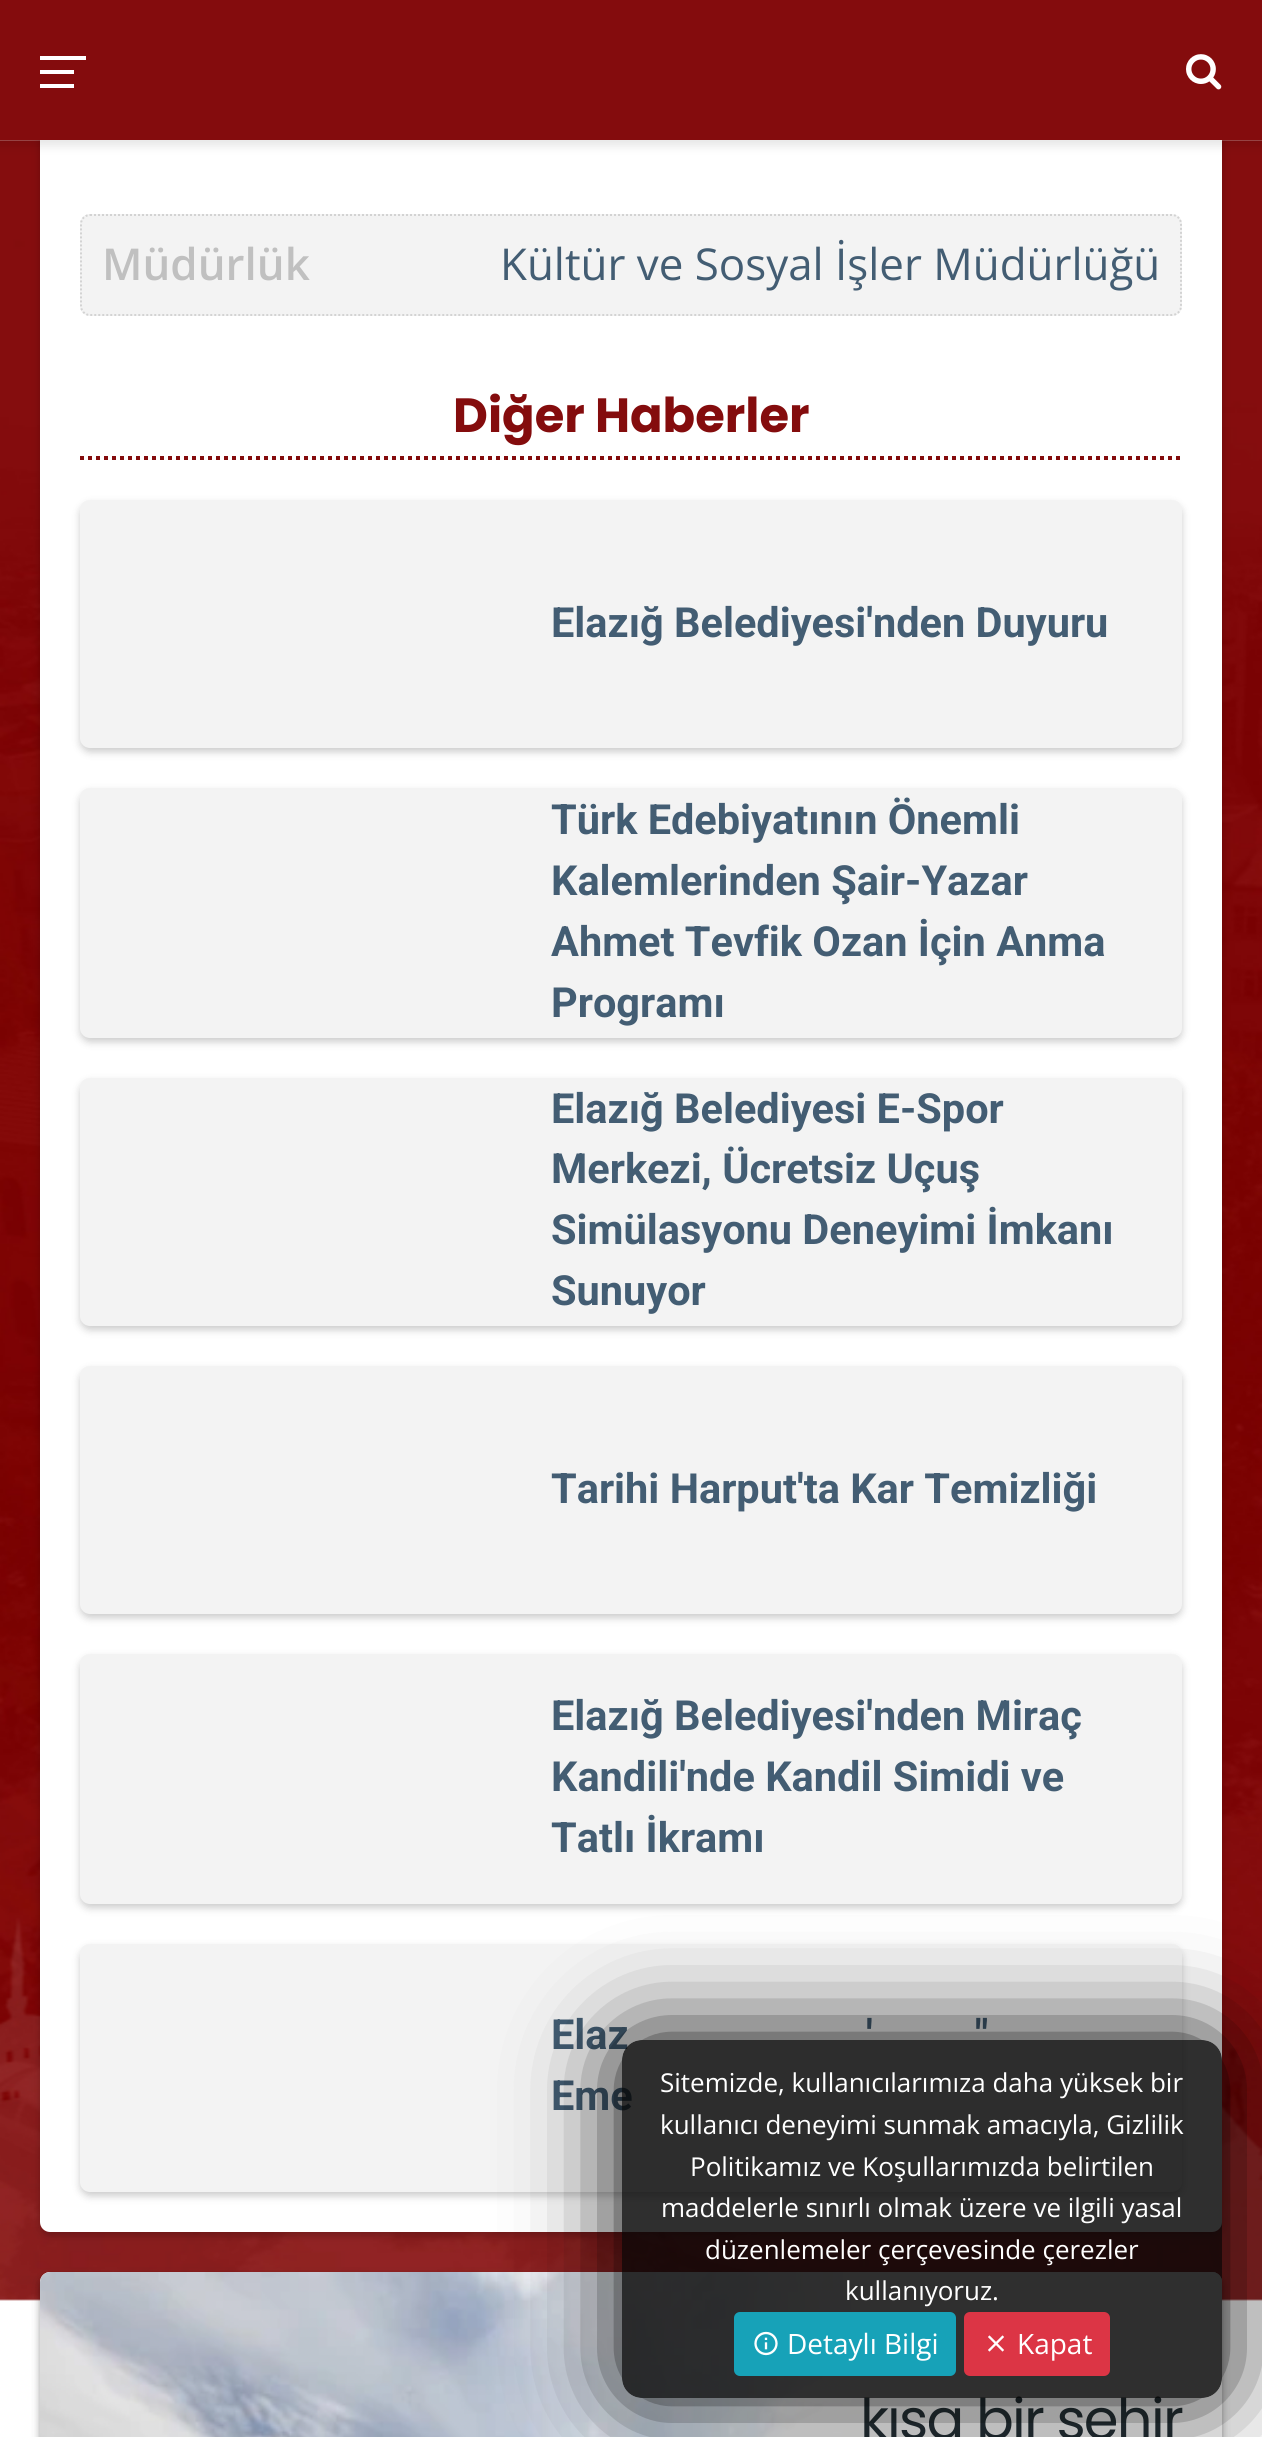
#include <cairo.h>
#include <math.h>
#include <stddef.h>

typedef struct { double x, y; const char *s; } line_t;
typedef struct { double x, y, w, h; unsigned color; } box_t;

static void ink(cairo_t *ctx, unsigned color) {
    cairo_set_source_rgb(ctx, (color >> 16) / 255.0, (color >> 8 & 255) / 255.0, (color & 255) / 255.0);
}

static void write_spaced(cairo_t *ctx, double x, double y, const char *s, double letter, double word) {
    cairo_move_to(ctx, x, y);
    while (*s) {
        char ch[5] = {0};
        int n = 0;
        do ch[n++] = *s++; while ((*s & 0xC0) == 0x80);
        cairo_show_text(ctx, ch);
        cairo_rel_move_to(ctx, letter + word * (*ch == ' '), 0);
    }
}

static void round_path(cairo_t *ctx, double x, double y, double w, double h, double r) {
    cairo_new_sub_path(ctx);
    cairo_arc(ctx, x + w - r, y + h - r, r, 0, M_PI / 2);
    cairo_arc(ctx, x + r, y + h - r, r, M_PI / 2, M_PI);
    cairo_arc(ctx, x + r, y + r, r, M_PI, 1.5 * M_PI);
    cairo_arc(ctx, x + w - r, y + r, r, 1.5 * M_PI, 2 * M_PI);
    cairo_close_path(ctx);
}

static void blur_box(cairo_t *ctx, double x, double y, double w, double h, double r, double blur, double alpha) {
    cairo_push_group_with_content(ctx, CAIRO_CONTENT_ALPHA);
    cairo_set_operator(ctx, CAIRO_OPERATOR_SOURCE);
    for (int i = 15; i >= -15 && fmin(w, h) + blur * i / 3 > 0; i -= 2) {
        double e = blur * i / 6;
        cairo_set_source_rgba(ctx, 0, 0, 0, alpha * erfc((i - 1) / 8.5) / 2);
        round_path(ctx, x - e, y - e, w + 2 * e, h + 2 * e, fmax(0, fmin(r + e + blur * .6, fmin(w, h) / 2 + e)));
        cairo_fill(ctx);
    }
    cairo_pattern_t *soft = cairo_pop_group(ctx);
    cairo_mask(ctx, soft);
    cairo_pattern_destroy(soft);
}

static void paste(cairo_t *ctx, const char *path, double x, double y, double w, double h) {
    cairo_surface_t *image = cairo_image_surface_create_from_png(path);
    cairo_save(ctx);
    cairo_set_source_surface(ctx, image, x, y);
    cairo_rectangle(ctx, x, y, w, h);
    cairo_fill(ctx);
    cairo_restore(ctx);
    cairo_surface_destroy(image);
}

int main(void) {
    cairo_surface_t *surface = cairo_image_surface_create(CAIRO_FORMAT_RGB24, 1262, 2437);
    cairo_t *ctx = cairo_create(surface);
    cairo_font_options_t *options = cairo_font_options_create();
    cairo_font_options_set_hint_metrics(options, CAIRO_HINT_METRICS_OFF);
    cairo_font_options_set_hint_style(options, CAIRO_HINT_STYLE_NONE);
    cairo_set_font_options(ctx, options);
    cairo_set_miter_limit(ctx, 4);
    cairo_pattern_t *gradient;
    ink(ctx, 0xFFFFFF);
    cairo_paint(ctx);
    paste(ctx, "media/1.png", 0, 140, 1262, 2161);
    ink(ctx, 0x000000);
    blur_box(ctx, 40, -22, 1182, 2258, 10, 4, 0.2);
    ink(ctx, 0xFFFFFF);
    round_path(ctx, 40, -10, 1182, 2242, 10);
    cairo_fill(ctx);
    ink(ctx, 0x000000);
    blur_box(ctx, -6, -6, 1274, 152, 0, 5, 0.1);
    {
        static const box_t items[] = {
            {0, 0, 1262, 140, 0x840C0D},
            {40, 70, 34, 4, 0xFFFFFF},
            {40, 56, 46, 4, 0xFFFFFF},
            {40, 84, 34, 4, 0xFFFFFF},
        };
        for (size_t i = 0; i < sizeof items / sizeof *items; i++) {
            ink(ctx, items[i].color);
            cairo_rectangle(ctx, items[i].x, items[i].y, items[i].w, items[i].h);
            cairo_fill(ctx);
        }
    }
    paste(ctx, "media/2.png", 1186, 54, 36, 36);
    ink(ctx, 0xF3F3F3);
    round_path(ctx, 80, 214, 1102, 102, 10);
    cairo_fill(ctx);
    cairo_new_path(ctx);
    cairo_move_to(ctx, 90, 215);
    cairo_line_to(ctx, 1172, 215);
    cairo_curve_to(ctx, 1177, 215, 1181, 219, 1181, 224);
    cairo_line_to(ctx, 1181, 306);
    cairo_curve_to(ctx, 1181, 311, 1177, 315, 1172, 315);
    cairo_line_to(ctx, 90, 315);
    cairo_curve_to(ctx, 85, 315, 81, 311, 81, 306);
    cairo_line_to(ctx, 81, 224);
    cairo_curve_to(ctx, 81, 219, 85, 215, 90, 215);
    cairo_close_path(ctx);
    ink(ctx, 0xD3D3D3);
    cairo_set_dash(ctx, (double[]){2, 2}, 2, 0);
    cairo_stroke(ctx);
    cairo_select_font_face(ctx, "Open Sans SemiBold", CAIRO_FONT_SLANT_NORMAL, CAIRO_FONT_WEIGHT_NORMAL);
    cairo_set_font_size(ctx, 43.9);
    ink(ctx, 0xC0C0C0);
    cairo_move_to(ctx, 102, 280);
    cairo_show_text(ctx, "Müdürlük");
    cairo_select_font_face(ctx, "Open Sans", CAIRO_FONT_SLANT_NORMAL, CAIRO_FONT_WEIGHT_NORMAL);
    ink(ctx, 0x435D73);
    cairo_move_to(ctx, 500, 280);
    cairo_show_text(ctx, "Kültür ve Sosyal İşler Müdürlüğü");
    cairo_new_path(ctx);
    cairo_move_to(ctx, 80, 458);
    cairo_line_to(ctx, 1182, 458);
    ink(ctx, 0x840C0D);
    cairo_set_line_width(ctx, 4);
    cairo_set_dash(ctx, (double[]){4, 4}, 2, 0);
    cairo_stroke(ctx);
    cairo_select_font_face(ctx, "Poppins", CAIRO_FONT_SLANT_NORMAL, CAIRO_FONT_WEIGHT_BOLD);
    cairo_set_font_size(ctx, 48);
    cairo_move_to(ctx, 453, 432);
    cairo_show_text(ctx, "Diğer Haberler");
    ink(ctx, 0x000000);
    blur_box(ctx, 80, 504, 1102, 248, 10, 4, 0.2);
    ink(ctx, 0xF3F3F3);
    round_path(ctx, 80, 500, 1102, 248, 10);
    cairo_fill(ctx);
    cairo_select_font_face(ctx, "Roboto", CAIRO_FONT_SLANT_NORMAL, CAIRO_FONT_WEIGHT_BOLD);
    cairo_set_font_size(ctx, 41.5);
    ink(ctx, 0x435D73);
    cairo_move_to(ctx, 551, 637);
    cairo_show_text(ctx, "Elazığ Belediyesi'nden Duyuru");
    ink(ctx, 0x000000);
    blur_box(ctx, 80, 792, 1102, 250, 10, 4, 0.2);
    ink(ctx, 0xF3F3F3);
    round_path(ctx, 80, 788, 1102, 250, 10);
    cairo_fill(ctx);
    ink(ctx, 0x435D73);
    {
        static const line_t items[] = {
            {551, 834, "Türk Edebiyatının Önemli"},
            {551, 895, "Kalemlerinden Şair-Yazar"},
            {551, 956, "Ahmet Tevfik Ozan İçin Anma"},
            {551, 1017, "Programı"},
        };
        for (size_t i = 0; i < sizeof items / sizeof *items; i++) {
            cairo_move_to(ctx, items[i].x, items[i].y);
            cairo_show_text(ctx, items[i].s);
        }
    }
    ink(ctx, 0x000000);
    blur_box(ctx, 80, 1082, 1102, 248, 10, 4, 0.2);
    ink(ctx, 0xF3F3F3);
    round_path(ctx, 80, 1078, 1102, 248, 10);
    cairo_fill(ctx);
    ink(ctx, 0x435D73);
    {
        static const line_t items[] = {
            {551, 1123, "Elazığ Belediyesi E-Spor"},
            {551, 1183, "Merkezi, Ücretsiz Uçuş"},
            {551, 1244, "Simülasyonu Deneyimi İmkanı"},
            {551, 1305, "Sunuyor"},
        };
        for (size_t i = 0; i < sizeof items / sizeof *items; i++) {
            cairo_move_to(ctx, items[i].x, items[i].y);
            cairo_show_text(ctx, items[i].s);
        }
    }
    ink(ctx, 0x000000);
    blur_box(ctx, 80, 1370, 1102, 248, 10, 4, 0.2);
    ink(ctx, 0xF3F3F3);
    round_path(ctx, 80, 1366, 1102, 248, 10);
    cairo_fill(ctx);
    ink(ctx, 0x435D73);
    cairo_move_to(ctx, 551, 1503);
    cairo_show_text(ctx, "Tarihi Harput'ta Kar Temizliği");
    ink(ctx, 0x000000);
    blur_box(ctx, 80, 1658, 1102, 250, 10, 4, 0.2);
    ink(ctx, 0xF3F3F3);
    round_path(ctx, 80, 1654, 1102, 250, 10);
    cairo_fill(ctx);
    ink(ctx, 0x435D73);
    {
        static const line_t items[] = {
            {551, 1730, "Elazığ Belediyesi'nden Miraç"},
            {551, 1791, "Kandili'nde Kandil Simidi ve"},
            {551, 1852, "Tatlı İkramı"},
        };
        for (size_t i = 0; i < sizeof items / sizeof *items; i++) {
            cairo_move_to(ctx, items[i].x, items[i].y);
            cairo_show_text(ctx, items[i].s);
        }
    }
    ink(ctx, 0x000000);
    blur_box(ctx, 80, 1948, 1102, 248, 10, 4, 0.2);
    ink(ctx, 0xF3F3F3);
    round_path(ctx, 80, 1944, 1102, 248, 10);
    cairo_fill(ctx);
    ink(ctx, 0x435D73);
    {
        static const line_t items[] = {
            {551, 2049, "Elaz"},
            {866, 2049, "'"},
            {975, 2049, "\""},
            {551, 2110, "Eme"},
        };
        for (size_t i = 0; i < sizeof items / sizeof *items; i++) {
            cairo_move_to(ctx, items[i].x, items[i].y);
            cairo_show_text(ctx, items[i].s);
        }
    }
    ink(ctx, 0x000000);
    blur_box(ctx, 40, 2276, 1182, 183, 10, 4, 0.2);
    blur_box(ctx, 40, 2276, 1182, 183, 10, 4, 0.2);
    ink(ctx, 0xFFFFFF);
    cairo_new_path(ctx);
    cairo_move_to(ctx, 50, 2272);
    cairo_line_to(ctx, 1212, 2272);
    cairo_curve_to(ctx, 1217.5, 2272, 1222, 2276.5, 1222, 2282);
    cairo_line_to(ctx, 1222, 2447);
    cairo_line_to(ctx, 40, 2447);
    cairo_line_to(ctx, 40, 2282);
    cairo_curve_to(ctx, 40, 2276.5, 44.5, 2272, 50, 2272);
    cairo_close_path(ctx);
    cairo_fill(ctx);
    paste(ctx, "media/3.png", 40, 2272, 1182, 165);
    gradient = cairo_pattern_create_linear(1222, 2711, 632, 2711);
    cairo_pattern_add_color_stop_rgba(gradient, 0, 1, 1, 1, 1);
    cairo_pattern_add_color_stop_rgba(gradient, 0.5, 1, 1, 1, 0.82);
    cairo_pattern_add_color_stop_rgba(gradient, 1, 1, 1, 1, 0);
    cairo_set_source(ctx, gradient);
    cairo_pattern_destroy(gradient);
    cairo_new_path(ctx);
    cairo_move_to(ctx, 632, 2272);
    cairo_line_to(ctx, 1212, 2272);
    cairo_curve_to(ctx, 1217.5, 2272, 1222, 2276.5, 1222, 2282);
    cairo_line_to(ctx, 1222, 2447);
    cairo_line_to(ctx, 632, 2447);
    cairo_close_path(ctx);
    cairo_fill(ctx);
    cairo_select_font_face(ctx, "Poppins", CAIRO_FONT_SLANT_NORMAL, CAIRO_FONT_WEIGHT_NORMAL);
    cairo_set_font_size(ctx, 56);
    ink(ctx, 0x263238);
    write_spaced(ctx, 860, 2439, "kısa bir şehir", -1.75, 0);
    cairo_save(ctx);
    cairo_set_fill_rule(ctx, CAIRO_FILL_RULE_EVEN_ODD);
    cairo_new_path(ctx);
    cairo_move_to(ctx, 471, 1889);
    cairo_line_to(ctx, 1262, 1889);
    cairo_line_to(ctx, 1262, 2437);
    cairo_line_to(ctx, 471, 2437);
    cairo_close_path(ctx);
    cairo_move_to(ctx, 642, 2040);
    cairo_line_to(ctx, 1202, 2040);
    cairo_curve_to(ctx, 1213, 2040, 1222, 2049, 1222, 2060);
    cairo_line_to(ctx, 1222, 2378);
    cairo_curve_to(ctx, 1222, 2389, 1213, 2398, 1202, 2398);
    cairo_line_to(ctx, 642, 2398);
    cairo_curve_to(ctx, 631, 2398, 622, 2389, 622, 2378);
    cairo_line_to(ctx, 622, 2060);
    cairo_curve_to(ctx, 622, 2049, 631, 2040, 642, 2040);
    cairo_close_path(ctx);
    cairo_clip(ctx);
    ink(ctx, 0x000000);
    blur_box(ctx, 622, 2040, 600, 358, 20, 50, 1);
    cairo_restore(ctx);
    cairo_set_source_rgba(ctx, 0.02, 0.02, 0.02, 0.83);
    round_path(ctx, 622, 2040, 600, 358, 20);
    cairo_fill(ctx);
    cairo_select_font_face(ctx, "Open Sans", CAIRO_FONT_SLANT_NORMAL, CAIRO_FONT_WEIGHT_NORMAL);
    cairo_set_font_size(ctx, 26);
    ink(ctx, 0xFFFFFF);
    {
        static const line_t items[] = {
            {660, 2092, "Sitemizde, kullanıcılarımıza daha yüksek bir"},
            {660, 2134, "kullanıcı deneyimi sunmak amacıyla, Gizlilik"},
            {690, 2176, "Politikamız ve Koşullarımızda belirtilen"},
            {661, 2217, "maddelerle sınırlı olmak üzere ve ilgili yasal"},
            {705, 2259, "düzenlemeler çerçevesinde çerezler"},
            {845, 2300, "kullanıyoruz."},
        };
        for (size_t i = 0; i < sizeof items / sizeof *items; i++) {
            cairo_move_to(ctx, items[i].x, items[i].y);
            cairo_show_text(ctx, items[i].s);
        }
    }
    ink(ctx, 0x17A2B8);
    round_path(ctx, 735, 2313, 220, 62, 5);
    cairo_fill_preserve(ctx);
    cairo_set_line_width(ctx, 2);
    cairo_set_dash(ctx, NULL, 0, 0);
    cairo_stroke(ctx);
    paste(ctx, "media/4.png", 754, 2331, 24, 25);
    cairo_set_font_size(ctx, 28);
    ink(ctx, 0xFFFFFF);
    cairo_move_to(ctx, 787, 2354);
    cairo_show_text(ctx, "Detaylı Bilgi");
    ink(ctx, 0xDC3545);
    round_path(ctx, 965, 2313, 144, 62, 5);
    cairo_fill_preserve(ctx);
    cairo_stroke(ctx);
    paste(ctx, "media/5.png", 988, 2335, 16, 17);
    ink(ctx, 0xFFFFFF);
    cairo_move_to(ctx, 1017, 2354);
    cairo_show_text(ctx, "Kapat");
    cairo_surface_write_to_png(surface, "image.png");
    cairo_font_options_destroy(options);
    cairo_destroy(ctx);
    cairo_surface_destroy(surface);
    return 0;
}
